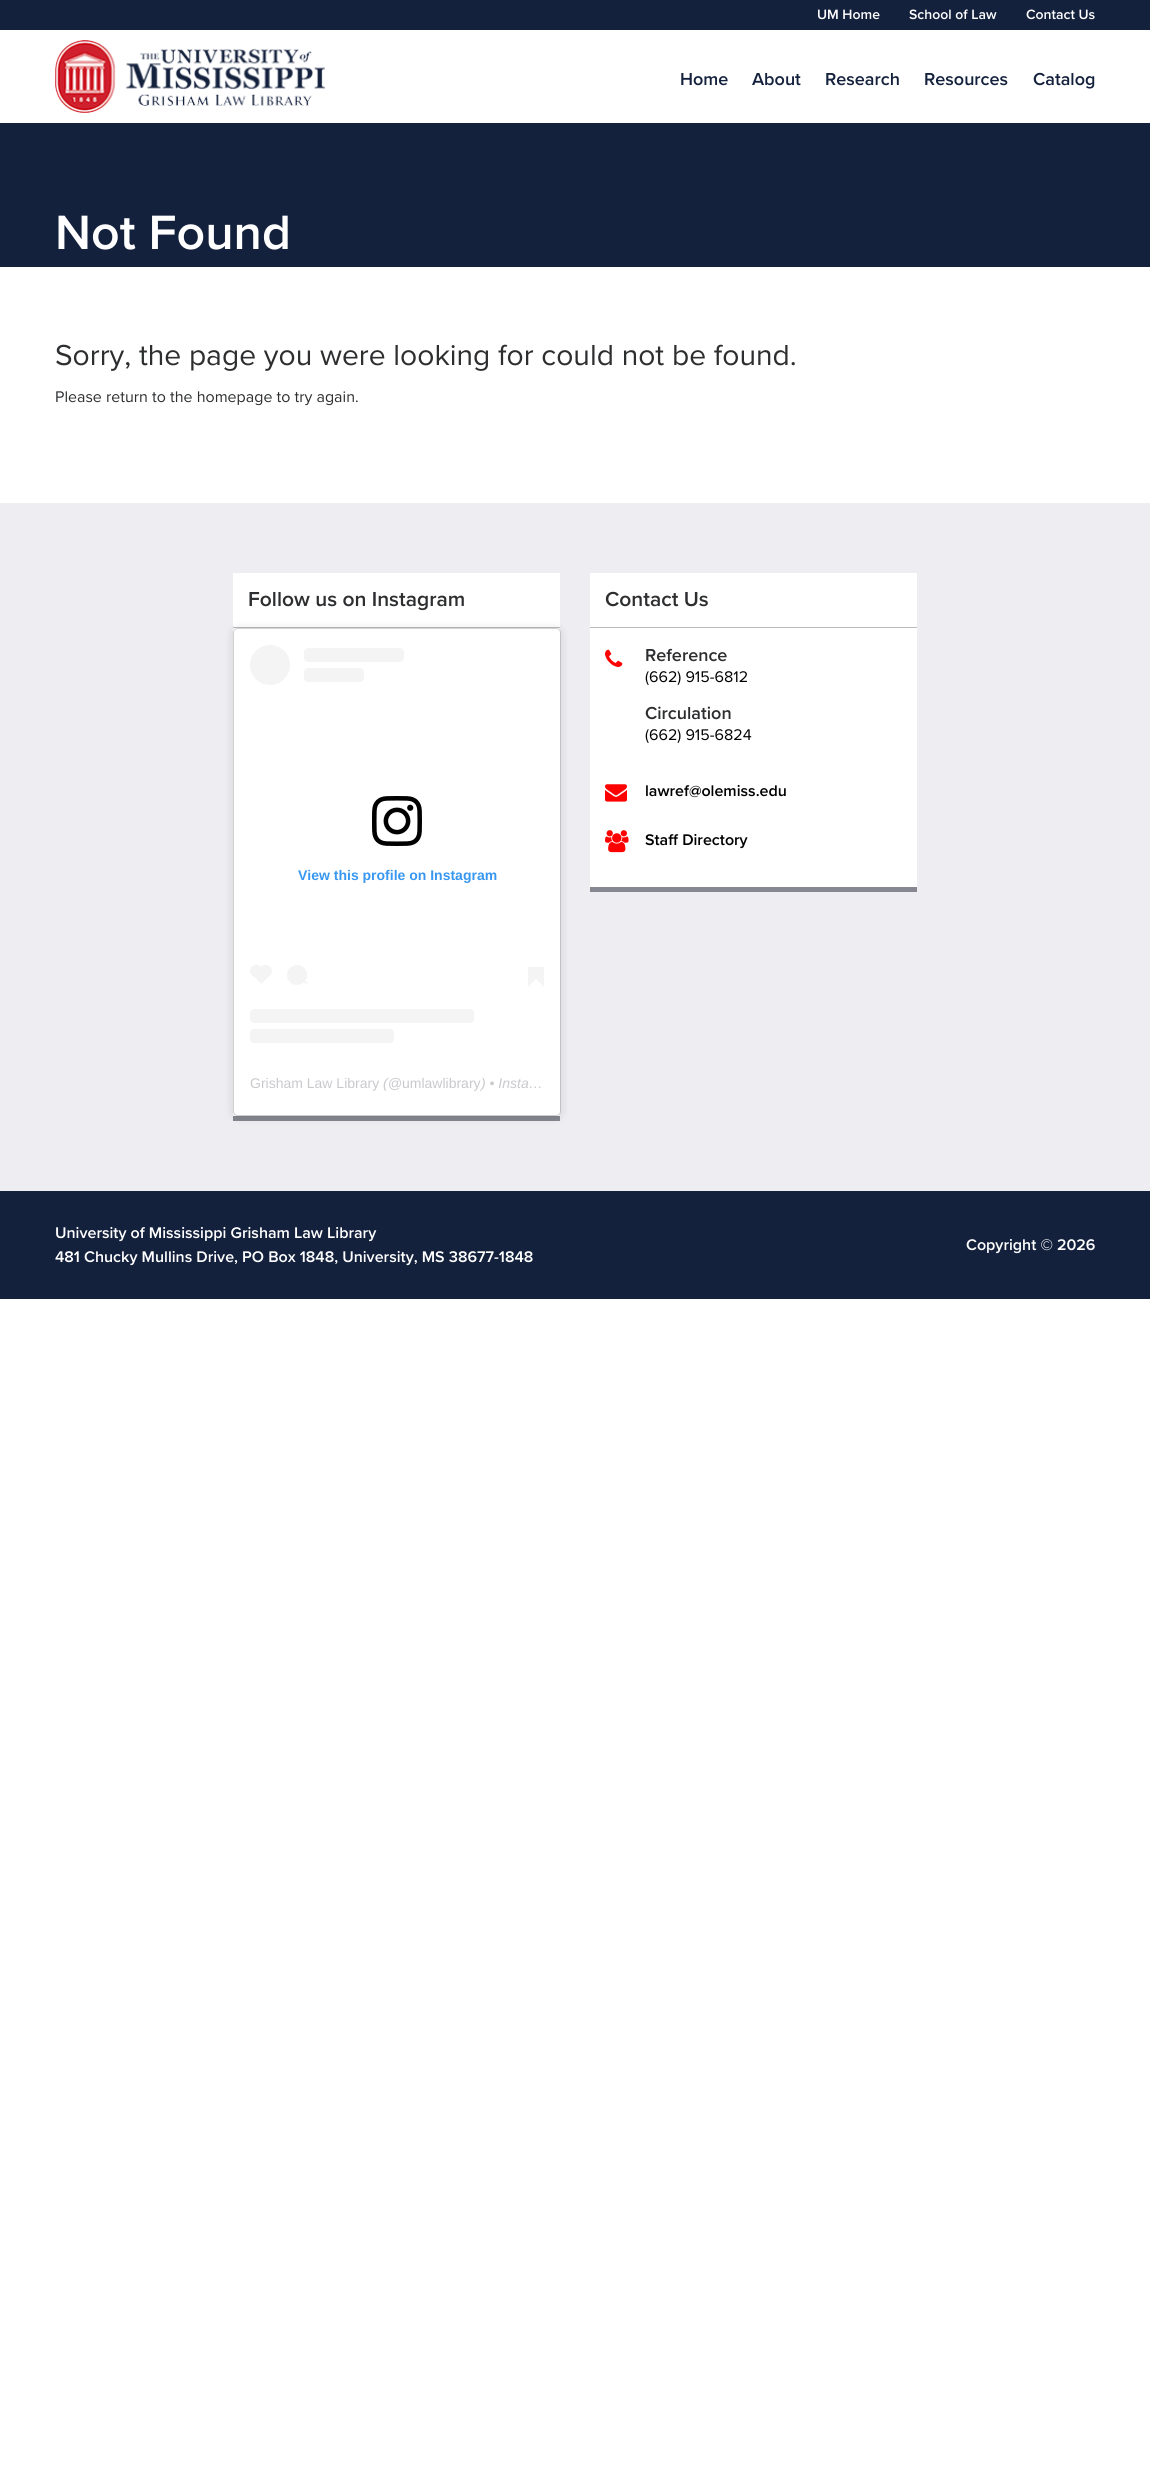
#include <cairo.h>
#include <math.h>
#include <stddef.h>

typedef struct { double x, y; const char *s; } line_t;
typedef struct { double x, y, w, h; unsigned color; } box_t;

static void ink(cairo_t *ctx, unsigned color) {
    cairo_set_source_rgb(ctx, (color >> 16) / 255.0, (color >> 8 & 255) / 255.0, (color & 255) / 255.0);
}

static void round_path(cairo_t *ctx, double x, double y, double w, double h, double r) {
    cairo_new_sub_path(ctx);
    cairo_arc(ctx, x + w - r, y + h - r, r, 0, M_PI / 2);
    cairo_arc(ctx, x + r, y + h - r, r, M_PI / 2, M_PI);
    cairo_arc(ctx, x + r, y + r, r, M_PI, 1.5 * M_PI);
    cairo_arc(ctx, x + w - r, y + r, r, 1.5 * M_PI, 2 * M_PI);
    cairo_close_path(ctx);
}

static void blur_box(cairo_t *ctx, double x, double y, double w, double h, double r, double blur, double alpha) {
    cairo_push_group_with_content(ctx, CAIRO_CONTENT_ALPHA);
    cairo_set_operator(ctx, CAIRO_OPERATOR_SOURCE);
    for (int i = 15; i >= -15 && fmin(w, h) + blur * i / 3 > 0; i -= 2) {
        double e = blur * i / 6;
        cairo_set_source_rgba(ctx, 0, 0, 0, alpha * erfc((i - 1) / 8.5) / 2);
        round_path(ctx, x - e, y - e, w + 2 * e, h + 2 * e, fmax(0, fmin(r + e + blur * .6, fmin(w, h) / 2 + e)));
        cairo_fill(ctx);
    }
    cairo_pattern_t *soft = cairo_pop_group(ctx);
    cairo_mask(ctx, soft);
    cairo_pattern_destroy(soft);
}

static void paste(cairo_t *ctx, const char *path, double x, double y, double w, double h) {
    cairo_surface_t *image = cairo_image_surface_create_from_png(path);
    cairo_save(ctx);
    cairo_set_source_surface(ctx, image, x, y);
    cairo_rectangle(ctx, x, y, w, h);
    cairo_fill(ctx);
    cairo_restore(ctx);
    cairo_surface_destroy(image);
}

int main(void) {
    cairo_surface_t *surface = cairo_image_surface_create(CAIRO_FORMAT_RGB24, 1150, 2490);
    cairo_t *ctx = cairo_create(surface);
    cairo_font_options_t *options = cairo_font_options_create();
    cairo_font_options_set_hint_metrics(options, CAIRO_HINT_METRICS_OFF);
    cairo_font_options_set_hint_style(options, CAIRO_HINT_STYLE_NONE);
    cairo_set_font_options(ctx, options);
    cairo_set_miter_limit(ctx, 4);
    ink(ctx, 0xFFFFFF);
    cairo_paint(ctx);
    ink(ctx, 0x14213D);
    cairo_rectangle(ctx, 0, 0, 1150, 30);
    cairo_fill(ctx);
    paste(ctx, "media/1.png", 55, 40, 270, 73);
    cairo_select_font_face(ctx, "Proxima Nova SemiBold", CAIRO_FONT_SLANT_NORMAL, CAIRO_FONT_WEIGHT_NORMAL);
    cairo_set_font_size(ctx, 14);
    ink(ctx, 0xFFFFFF);
    {
        static const line_t items[] = {
            {817, 19, "UM Home"},
            {909, 19, "School of Law"},
            {1026, 19, "Contact Us"},
        };
        for (size_t i = 0; i < sizeof items / sizeof *items; i++) {
            cairo_move_to(ctx, items[i].x, items[i].y);
            cairo_show_text(ctx, items[i].s);
        }
    }
    cairo_set_font_size(ctx, 18);
    ink(ctx, 0x14213D);
    {
        static const line_t items[] = {
            {680, 85, "Home"},
            {752, 85, "About"},
            {825, 85, "Research"},
            {924, 85, "Resources"},
            {1033, 85, "Catalog"},
        };
        for (size_t i = 0; i < sizeof items / sizeof *items; i++) {
            cairo_move_to(ctx, items[i].x, items[i].y);
            cairo_show_text(ctx, items[i].s);
        }
    }
    cairo_rectangle(ctx, 0, 123, 1150, 144);
    cairo_fill(ctx);
    cairo_set_font_size(ctx, 50);
    ink(ctx, 0xFFFFFF);
    cairo_move_to(ctx, 55, 249);
    cairo_show_text(ctx, "Not Found");
    cairo_select_font_face(ctx, "Proxima Nova", CAIRO_FONT_SLANT_NORMAL, CAIRO_FONT_WEIGHT_NORMAL);
    cairo_set_font_size(ctx, 30);
    ink(ctx, 0x2D2E30);
    cairo_move_to(ctx, 55, 365);
    cairo_show_text(ctx, "Sorry, the page you were looking for could not be found.");
    cairo_set_font_size(ctx, 16);
    cairo_move_to(ctx, 55, 402);
    cairo_show_text(ctx, "Please return to the homepage to try again.");
    {
        static const box_t items[] = {
            {0, 503, 1150, 688, 0xEDEDF2},
            {233, 573, 327, 543, 0xFFFFFF},
            {233, 1116, 327, 5, 0x878791},
            {233, 627, 327, 1, 0xBABABF},
        };
        for (size_t i = 0; i < sizeof items / sizeof *items; i++) {
            ink(ctx, items[i].color);
            cairo_rectangle(ctx, items[i].x, items[i].y, items[i].w, items[i].h);
            cairo_fill(ctx);
        }
    }
    cairo_select_font_face(ctx, "Proxima Nova SemiBold", CAIRO_FONT_SLANT_NORMAL, CAIRO_FONT_WEIGHT_NORMAL);
    cairo_set_font_size(ctx, 21);
    ink(ctx, 0x2D2E30);
    cairo_move_to(ctx, 248, 606);
    cairo_show_text(ctx, "Follow us on Instagram");
    ink(ctx, 0x000000);
    blur_box(ctx, 234, 630, 326, 486, 3, 5, 0.15);
    blur_box(ctx, 234, 629, 326, 486, 3, 0.5, 0.5);
    ink(ctx, 0xFFFFFF);
    round_path(ctx, 234, 629, 326, 486, 3);
    cairo_fill(ctx);
    ink(ctx, 0xF4F4F4);
    cairo_arc(ctx, 270, 665, 20, 0, 2 * M_PI);
    cairo_fill(ctx);
    round_path(ctx, 304, 648, 100, 14, 4);
    cairo_fill(ctx);
    round_path(ctx, 304, 668, 60, 14, 4);
    cairo_fill(ctx);
    paste(ctx, "media/2.png", 372, 796, 50, 50);
    cairo_select_font_face(ctx, "Liberation Sans", CAIRO_FONT_SLANT_NORMAL, CAIRO_FONT_WEIGHT_BOLD);
    cairo_set_font_size(ctx, 14);
    ink(ctx, 0x3897F0);
    cairo_move_to(ctx, 298, 880);
    cairo_show_text(ctx, "View this profile on Instagram");
    ink(ctx, 0xF4F4F4);
    round_path(ctx, 250, 965, 13, 12, 6);
    cairo_fill(ctx);
    cairo_new_path(ctx);
    cairo_move_to(ctx, 252.5, 975);
    cairo_line_to(ctx, 261.5, 966);
    cairo_line_to(ctx, 270.5, 975);
    cairo_line_to(ctx, 261.5, 984);
    cairo_close_path(ctx);
    cairo_fill(ctx);
    round_path(ctx, 259, 965, 13, 12, 6);
    cairo_fill(ctx);
    cairo_arc(ctx, 297, 975, 10, 0, 2 * M_PI);
    cairo_fill(ctx);
    cairo_new_path(ctx);
    cairo_move_to(ctx, 302, 982.5);
    cairo_line_to(ctx, 304, 979.5);
    cairo_line_to(ctx, 308.5, 984);
    cairo_close_path(ctx);
    cairo_fill(ctx);
    cairo_rectangle(ctx, 528, 967, 16, 12);
    cairo_fill(ctx);
    cairo_new_path(ctx);
    cairo_move_to(ctx, 528, 979);
    cairo_line_to(ctx, 536, 979);
    cairo_line_to(ctx, 528, 987);
    cairo_close_path(ctx);
    cairo_fill(ctx);
    cairo_new_path(ctx);
    cairo_move_to(ctx, 536, 979);
    cairo_line_to(ctx, 544, 979);
    cairo_line_to(ctx, 544, 987);
    cairo_close_path(ctx);
    cairo_fill(ctx);
    round_path(ctx, 250, 1009, 224, 14, 4);
    cairo_fill(ctx);
    round_path(ctx, 250, 1029, 144, 14, 4);
    cairo_fill(ctx);
    cairo_select_font_face(ctx, "Liberation Sans", CAIRO_FONT_SLANT_NORMAL, CAIRO_FONT_WEIGHT_NORMAL);
    ink(ctx, 0xC9C8CD);
    cairo_move_to(ctx, 250, 1088);
    cairo_show_text(ctx, "Grisham Law Library");
    cairo_select_font_face(ctx, "Liberation Sans", CAIRO_FONT_SLANT_ITALIC, CAIRO_FONT_WEIGHT_NORMAL);
    cairo_move_to(ctx, 383, 1088);
    cairo_show_text(ctx, "(@");
    cairo_select_font_face(ctx, "Liberation Sans", CAIRO_FONT_SLANT_NORMAL, CAIRO_FONT_WEIGHT_NORMAL);
    cairo_move_to(ctx, 402, 1088);
    cairo_show_text(ctx, "umlawlibrary");
    cairo_select_font_face(ctx, "Liberation Sans", CAIRO_FONT_SLANT_ITALIC, CAIRO_FONT_WEIGHT_NORMAL);
    cairo_move_to(ctx, 481, 1088);
    cairo_show_text(ctx, ") • Insta…");
    ink(ctx, 0xFFFFFF);
    cairo_rectangle(ctx, 590, 573, 327, 54);
    cairo_fill(ctx);
    ink(ctx, 0xBABABF);
    cairo_rectangle(ctx, 590, 627, 327, 1);
    cairo_fill(ctx);
    cairo_select_font_face(ctx, "Proxima Nova SemiBold", CAIRO_FONT_SLANT_NORMAL, CAIRO_FONT_WEIGHT_NORMAL);
    cairo_set_font_size(ctx, 21);
    ink(ctx, 0x2D2E30);
    cairo_move_to(ctx, 605, 606);
    cairo_show_text(ctx, "Contact Us");
    ink(ctx, 0xFFFFFF);
    cairo_rectangle(ctx, 590, 628, 327, 259);
    cairo_fill(ctx);
    ink(ctx, 0x878791);
    cairo_rectangle(ctx, 590, 887, 327, 5);
    cairo_fill(ctx);
    paste(ctx, "media/3.png", 605, 649, 18, 18);
    cairo_set_font_size(ctx, 18);
    ink(ctx, 0x2D2E30);
    cairo_move_to(ctx, 645, 661);
    cairo_show_text(ctx, "Reference");
    cairo_select_font_face(ctx, "Proxima Nova", CAIRO_FONT_SLANT_NORMAL, CAIRO_FONT_WEIGHT_NORMAL);
    cairo_set_font_size(ctx, 16);
    ink(ctx, 0x000000);
    cairo_move_to(ctx, 645, 682);
    cairo_show_text(ctx, "(662) 915-6812");
    cairo_select_font_face(ctx, "Proxima Nova SemiBold", CAIRO_FONT_SLANT_NORMAL, CAIRO_FONT_WEIGHT_NORMAL);
    cairo_set_font_size(ctx, 18);
    ink(ctx, 0x2D2E30);
    cairo_move_to(ctx, 645, 719);
    cairo_show_text(ctx, "Circulation");
    cairo_select_font_face(ctx, "Proxima Nova", CAIRO_FONT_SLANT_NORMAL, CAIRO_FONT_WEIGHT_NORMAL);
    cairo_set_font_size(ctx, 16);
    ink(ctx, 0x000000);
    cairo_move_to(ctx, 645, 740);
    cairo_show_text(ctx, "(662) 915-6824");
    paste(ctx, "media/4.png", 605, 784, 22, 18);
    cairo_select_font_face(ctx, "Proxima Nova SemiBold", CAIRO_FONT_SLANT_NORMAL, CAIRO_FONT_WEIGHT_NORMAL);
    cairo_move_to(ctx, 645, 796);
    cairo_show_text(ctx, "lawref@olemiss.edu");
    paste(ctx, "media/5.png", 605, 830, 24, 23);
    cairo_move_to(ctx, 645, 845);
    cairo_show_text(ctx, "Staff Directory");
    ink(ctx, 0x14213D);
    cairo_rectangle(ctx, 0, 1191, 1150, 108);
    cairo_fill(ctx);
    ink(ctx, 0xFFFFFF);
    {
        static const line_t items[] = {
            {55, 1238, "University of Mississippi Grisham Law Library"},
            {55, 1262, "481 Chucky Mullins Drive, PO Box 1848, University, MS 38677-1848"},
            {966, 1250, "Copyright © 2026"},
        };
        for (size_t i = 0; i < sizeof items / sizeof *items; i++) {
            cairo_move_to(ctx, items[i].x, items[i].y);
            cairo_show_text(ctx, items[i].s);
        }
    }
    cairo_surface_write_to_png(surface, "image.png");
    cairo_font_options_destroy(options);
    cairo_destroy(ctx);
    cairo_surface_destroy(surface);
    return 0;
}
